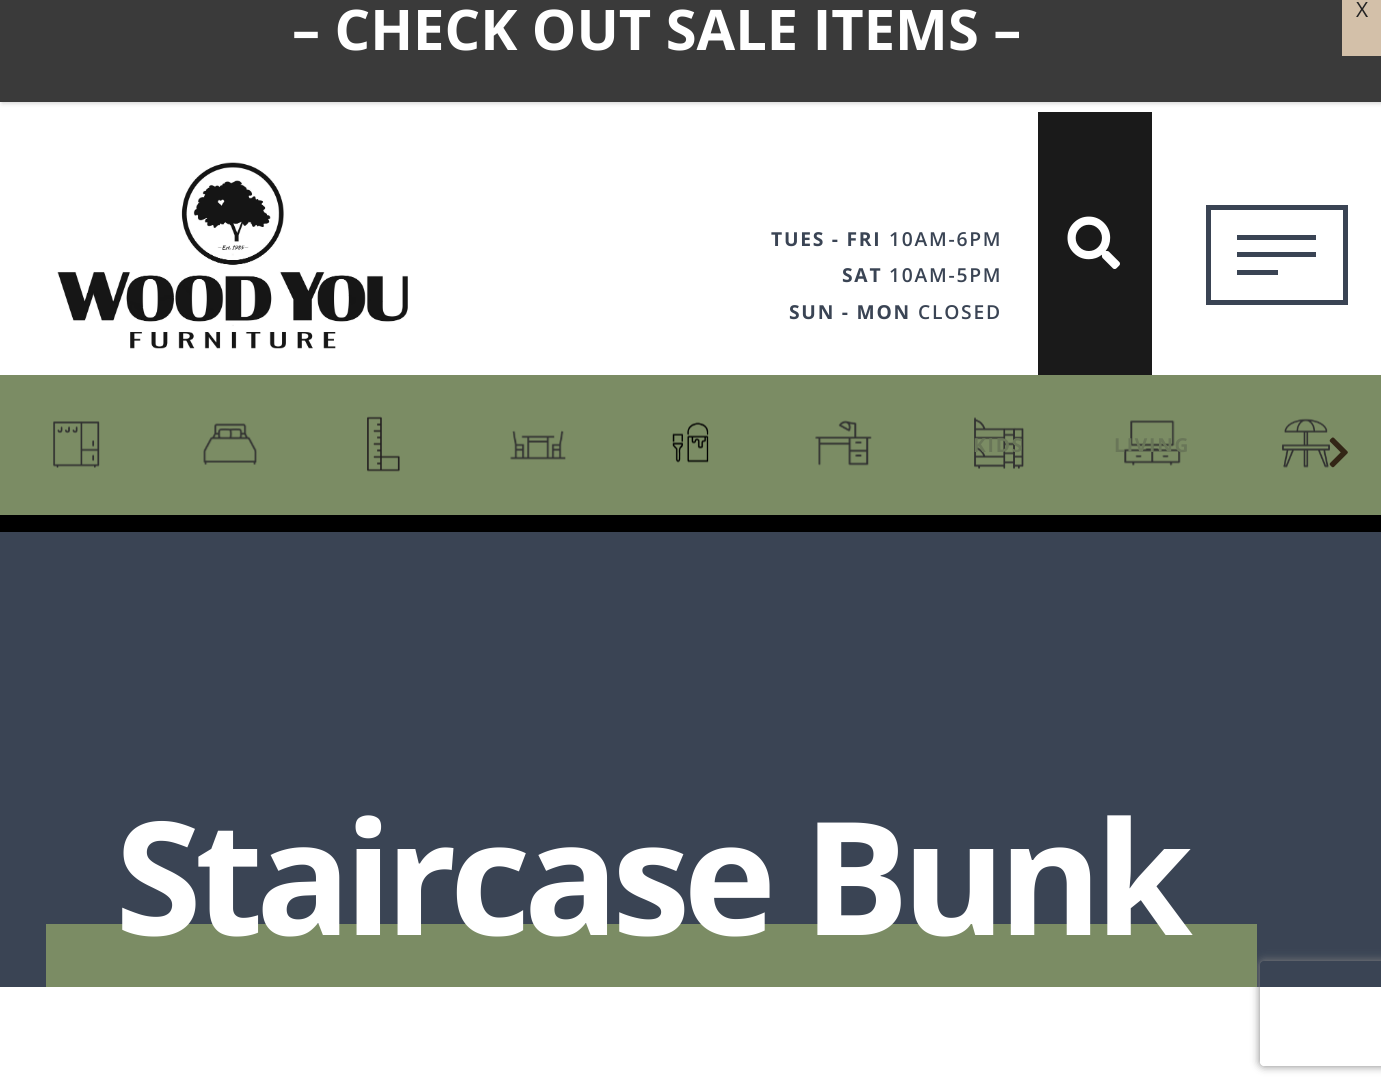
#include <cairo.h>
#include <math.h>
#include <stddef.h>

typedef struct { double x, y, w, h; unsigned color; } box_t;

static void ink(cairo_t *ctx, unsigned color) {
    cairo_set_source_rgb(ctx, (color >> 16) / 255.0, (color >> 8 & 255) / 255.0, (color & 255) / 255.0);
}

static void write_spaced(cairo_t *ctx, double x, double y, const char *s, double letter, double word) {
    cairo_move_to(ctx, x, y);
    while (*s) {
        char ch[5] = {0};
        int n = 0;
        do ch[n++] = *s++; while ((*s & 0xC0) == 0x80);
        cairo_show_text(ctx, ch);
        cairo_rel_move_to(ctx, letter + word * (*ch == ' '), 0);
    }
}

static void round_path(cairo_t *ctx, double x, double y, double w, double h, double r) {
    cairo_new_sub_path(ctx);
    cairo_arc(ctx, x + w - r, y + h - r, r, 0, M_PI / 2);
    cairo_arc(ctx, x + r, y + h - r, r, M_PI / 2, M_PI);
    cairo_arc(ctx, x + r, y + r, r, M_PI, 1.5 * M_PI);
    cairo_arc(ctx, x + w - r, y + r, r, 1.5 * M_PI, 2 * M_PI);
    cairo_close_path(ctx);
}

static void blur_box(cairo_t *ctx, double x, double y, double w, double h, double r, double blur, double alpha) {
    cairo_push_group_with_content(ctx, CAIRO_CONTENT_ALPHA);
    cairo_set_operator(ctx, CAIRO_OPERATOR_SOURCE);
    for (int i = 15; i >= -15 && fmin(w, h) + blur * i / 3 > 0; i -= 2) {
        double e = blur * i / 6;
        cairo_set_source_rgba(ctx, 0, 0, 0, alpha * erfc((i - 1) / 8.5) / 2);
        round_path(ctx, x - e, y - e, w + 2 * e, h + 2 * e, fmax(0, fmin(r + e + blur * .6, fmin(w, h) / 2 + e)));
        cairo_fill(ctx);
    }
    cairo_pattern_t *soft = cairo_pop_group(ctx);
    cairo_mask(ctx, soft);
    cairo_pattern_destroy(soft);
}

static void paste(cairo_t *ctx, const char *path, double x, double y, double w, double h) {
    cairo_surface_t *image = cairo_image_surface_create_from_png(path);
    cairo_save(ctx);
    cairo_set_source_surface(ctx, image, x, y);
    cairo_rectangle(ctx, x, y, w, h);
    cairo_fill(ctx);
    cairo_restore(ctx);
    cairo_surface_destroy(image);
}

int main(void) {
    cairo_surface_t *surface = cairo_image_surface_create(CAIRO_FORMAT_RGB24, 1381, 1090);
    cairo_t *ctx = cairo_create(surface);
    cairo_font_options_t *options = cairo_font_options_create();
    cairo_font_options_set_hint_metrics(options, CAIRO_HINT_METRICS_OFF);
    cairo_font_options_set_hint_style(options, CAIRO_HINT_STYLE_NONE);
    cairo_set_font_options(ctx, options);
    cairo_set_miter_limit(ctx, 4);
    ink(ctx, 0xFFFFFF);
    cairo_paint(ctx);
    ink(ctx, 0x252525);
    blur_box(ctx, 2, -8, 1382, 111, 0, 2.5, 0.23);
    ink(ctx, 0x3A3A3A);
    cairo_rectangle(ctx, 0, 0, 1381, 102);
    cairo_fill(ctx);
    cairo_select_font_face(ctx, "Open Sans", CAIRO_FONT_SLANT_NORMAL, CAIRO_FONT_WEIGHT_BOLD);
    cairo_set_font_size(ctx, 56);
    ink(ctx, 0xFFFFFF);
    cairo_move_to(ctx, 292, 50);
    cairo_show_text(ctx, "– CHECK OUT SALE ITEMS –");
    ink(ctx, 0xD3C0A9);
    cairo_rectangle(ctx, 1342, 0, 39, 56);
    cairo_fill(ctx);
    cairo_select_font_face(ctx, "Open Sans", CAIRO_FONT_SLANT_NORMAL, CAIRO_FONT_WEIGHT_NORMAL);
    cairo_set_font_size(ctx, 21);
    ink(ctx, 0x232323);
    cairo_move_to(ctx, 1356, 17);
    cairo_show_text(ctx, "X");
    paste(ctx, "media/1.png", 57, 162, 351, 187);
    cairo_select_font_face(ctx, "Open Sans", CAIRO_FONT_SLANT_NORMAL, CAIRO_FONT_WEIGHT_BOLD);
    cairo_set_font_size(ctx, 19.25);
    ink(ctx, 0x3A4454);
    write_spaced(ctx, 771, 246, "TUES - FRI", 1.75, 0);
    cairo_select_font_face(ctx, "Open Sans SemiBold", CAIRO_FONT_SLANT_NORMAL, CAIRO_FONT_WEIGHT_NORMAL);
    write_spaced(ctx, 889, 246, "10AM-6PM", 1.75, 0);
    cairo_select_font_face(ctx, "Open Sans", CAIRO_FONT_SLANT_NORMAL, CAIRO_FONT_WEIGHT_BOLD);
    write_spaced(ctx, 842, 282, "SAT", 1.75, 0);
    cairo_select_font_face(ctx, "Open Sans SemiBold", CAIRO_FONT_SLANT_NORMAL, CAIRO_FONT_WEIGHT_NORMAL);
    write_spaced(ctx, 889, 282, "10AM-5PM", 1.75, 0);
    cairo_select_font_face(ctx, "Open Sans", CAIRO_FONT_SLANT_NORMAL, CAIRO_FONT_WEIGHT_BOLD);
    write_spaced(ctx, 789, 319, "SUN - MON", 1.75, 0);
    cairo_select_font_face(ctx, "Open Sans SemiBold", CAIRO_FONT_SLANT_NORMAL, CAIRO_FONT_WEIGHT_NORMAL);
    write_spaced(ctx, 918, 319, "CLOSED", 1.75, 0);
    ink(ctx, 0x1A1A1A);
    cairo_rectangle(ctx, 1038, 112, 114, 263);
    cairo_fill(ctx);
    paste(ctx, "media/2.png", 1067, 216, 53, 53);
    cairo_rectangle(ctx, 1208.5, 207.5, 137, 95);
    ink(ctx, 0x3A4454);
    cairo_set_line_width(ctx, 5);
    cairo_stroke(ctx);
    {
        static const box_t items[] = {
            {1237, 252, 79, 5, 0x3A4454},
            {1237, 235, 79, 5, 0x3A4454},
            {1237, 270, 41, 5, 0x3A4454},
            {0, 375, 1381, 140, 0x7B8C64},
        };
        for (size_t i = 0; i < sizeof items / sizeof *items; i++) {
            ink(ctx, items[i].color);
            cairo_rectangle(ctx, items[i].x, items[i].y, items[i].w, items[i].h);
            cairo_fill(ctx);
        }
    }
    paste(ctx, "media/3.png", 53, 421, 47, 47);
    ink(ctx, 0x000000);
    cairo_rectangle(ctx, 0, 515, 1381, 17);
    cairo_fill(ctx);
    paste(ctx, "media/4.png", 203, 423, 54, 42);
    paste(ctx, "media/5.png", 367, 416, 33, 56);
    paste(ctx, "media/6.png", 510, 430, 56, 30);
    paste(ctx, "media/7.png", 672, 422, 37, 41);
    paste(ctx, "media/8.png", 815, 420, 57, 46);
    paste(ctx, "media/9.png", 974, 417, 50, 52);
    cairo_select_font_face(ctx, "Open Sans", CAIRO_FONT_SLANT_NORMAL, CAIRO_FONT_WEIGHT_BOLD);
    ink(ctx, 0x697658);
    write_spaced(ctx, 973, 452, "KIDS", 1.75, 0);
    paste(ctx, "media/10.png", 1124, 420, 57, 46);
    write_spaced(ctx, 1114, 452, "LIVING", 1.75, 0);
    paste(ctx, "media/11.png", 1282, 418, 48, 50);
    paste(ctx, "media/12.png", 1329, 437, 19, 31);
    ink(ctx, 0x3A4454);
    cairo_rectangle(ctx, 0, 532, 1381, 455);
    cairo_fill(ctx);
    cairo_save(ctx);
    cairo_set_fill_rule(ctx, CAIRO_FILL_RULE_EVEN_ODD);
    cairo_new_path(ctx);
    cairo_move_to(ctx, 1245, 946);
    cairo_line_to(ctx, 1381, 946);
    cairo_line_to(ctx, 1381, 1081);
    cairo_line_to(ctx, 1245, 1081);
    cairo_close_path(ctx);
    cairo_move_to(ctx, 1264, 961);
    cairo_line_to(ctx, 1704, 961);
    cairo_curve_to(ctx, 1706, 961, 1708, 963, 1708, 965);
    cairo_line_to(ctx, 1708, 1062);
    cairo_curve_to(ctx, 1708, 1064, 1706, 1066, 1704, 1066);
    cairo_line_to(ctx, 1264, 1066);
    cairo_curve_to(ctx, 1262, 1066, 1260, 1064, 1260, 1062);
    cairo_line_to(ctx, 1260, 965);
    cairo_curve_to(ctx, 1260, 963, 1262, 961, 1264, 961);
    cairo_close_path(ctx);
    cairo_clip(ctx);
    ink(ctx, 0x808080);
    blur_box(ctx, 1260, 961, 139, 105, 4, 4.5, 1);
    cairo_restore(ctx);
    ink(ctx, 0x7B8C64);
    cairo_rectangle(ctx, 46, 924, 1211, 63);
    cairo_fill(ctx);
    cairo_set_font_size(ctx, 157.5);
    ink(ctx, 0xFFFFFF);
    write_spaced(ctx, 115, 935, "Staircase Bunk", -7, 0);
    cairo_surface_write_to_png(surface, "image.png");
    cairo_font_options_destroy(options);
    cairo_destroy(ctx);
    cairo_surface_destroy(surface);
    return 0;
}
